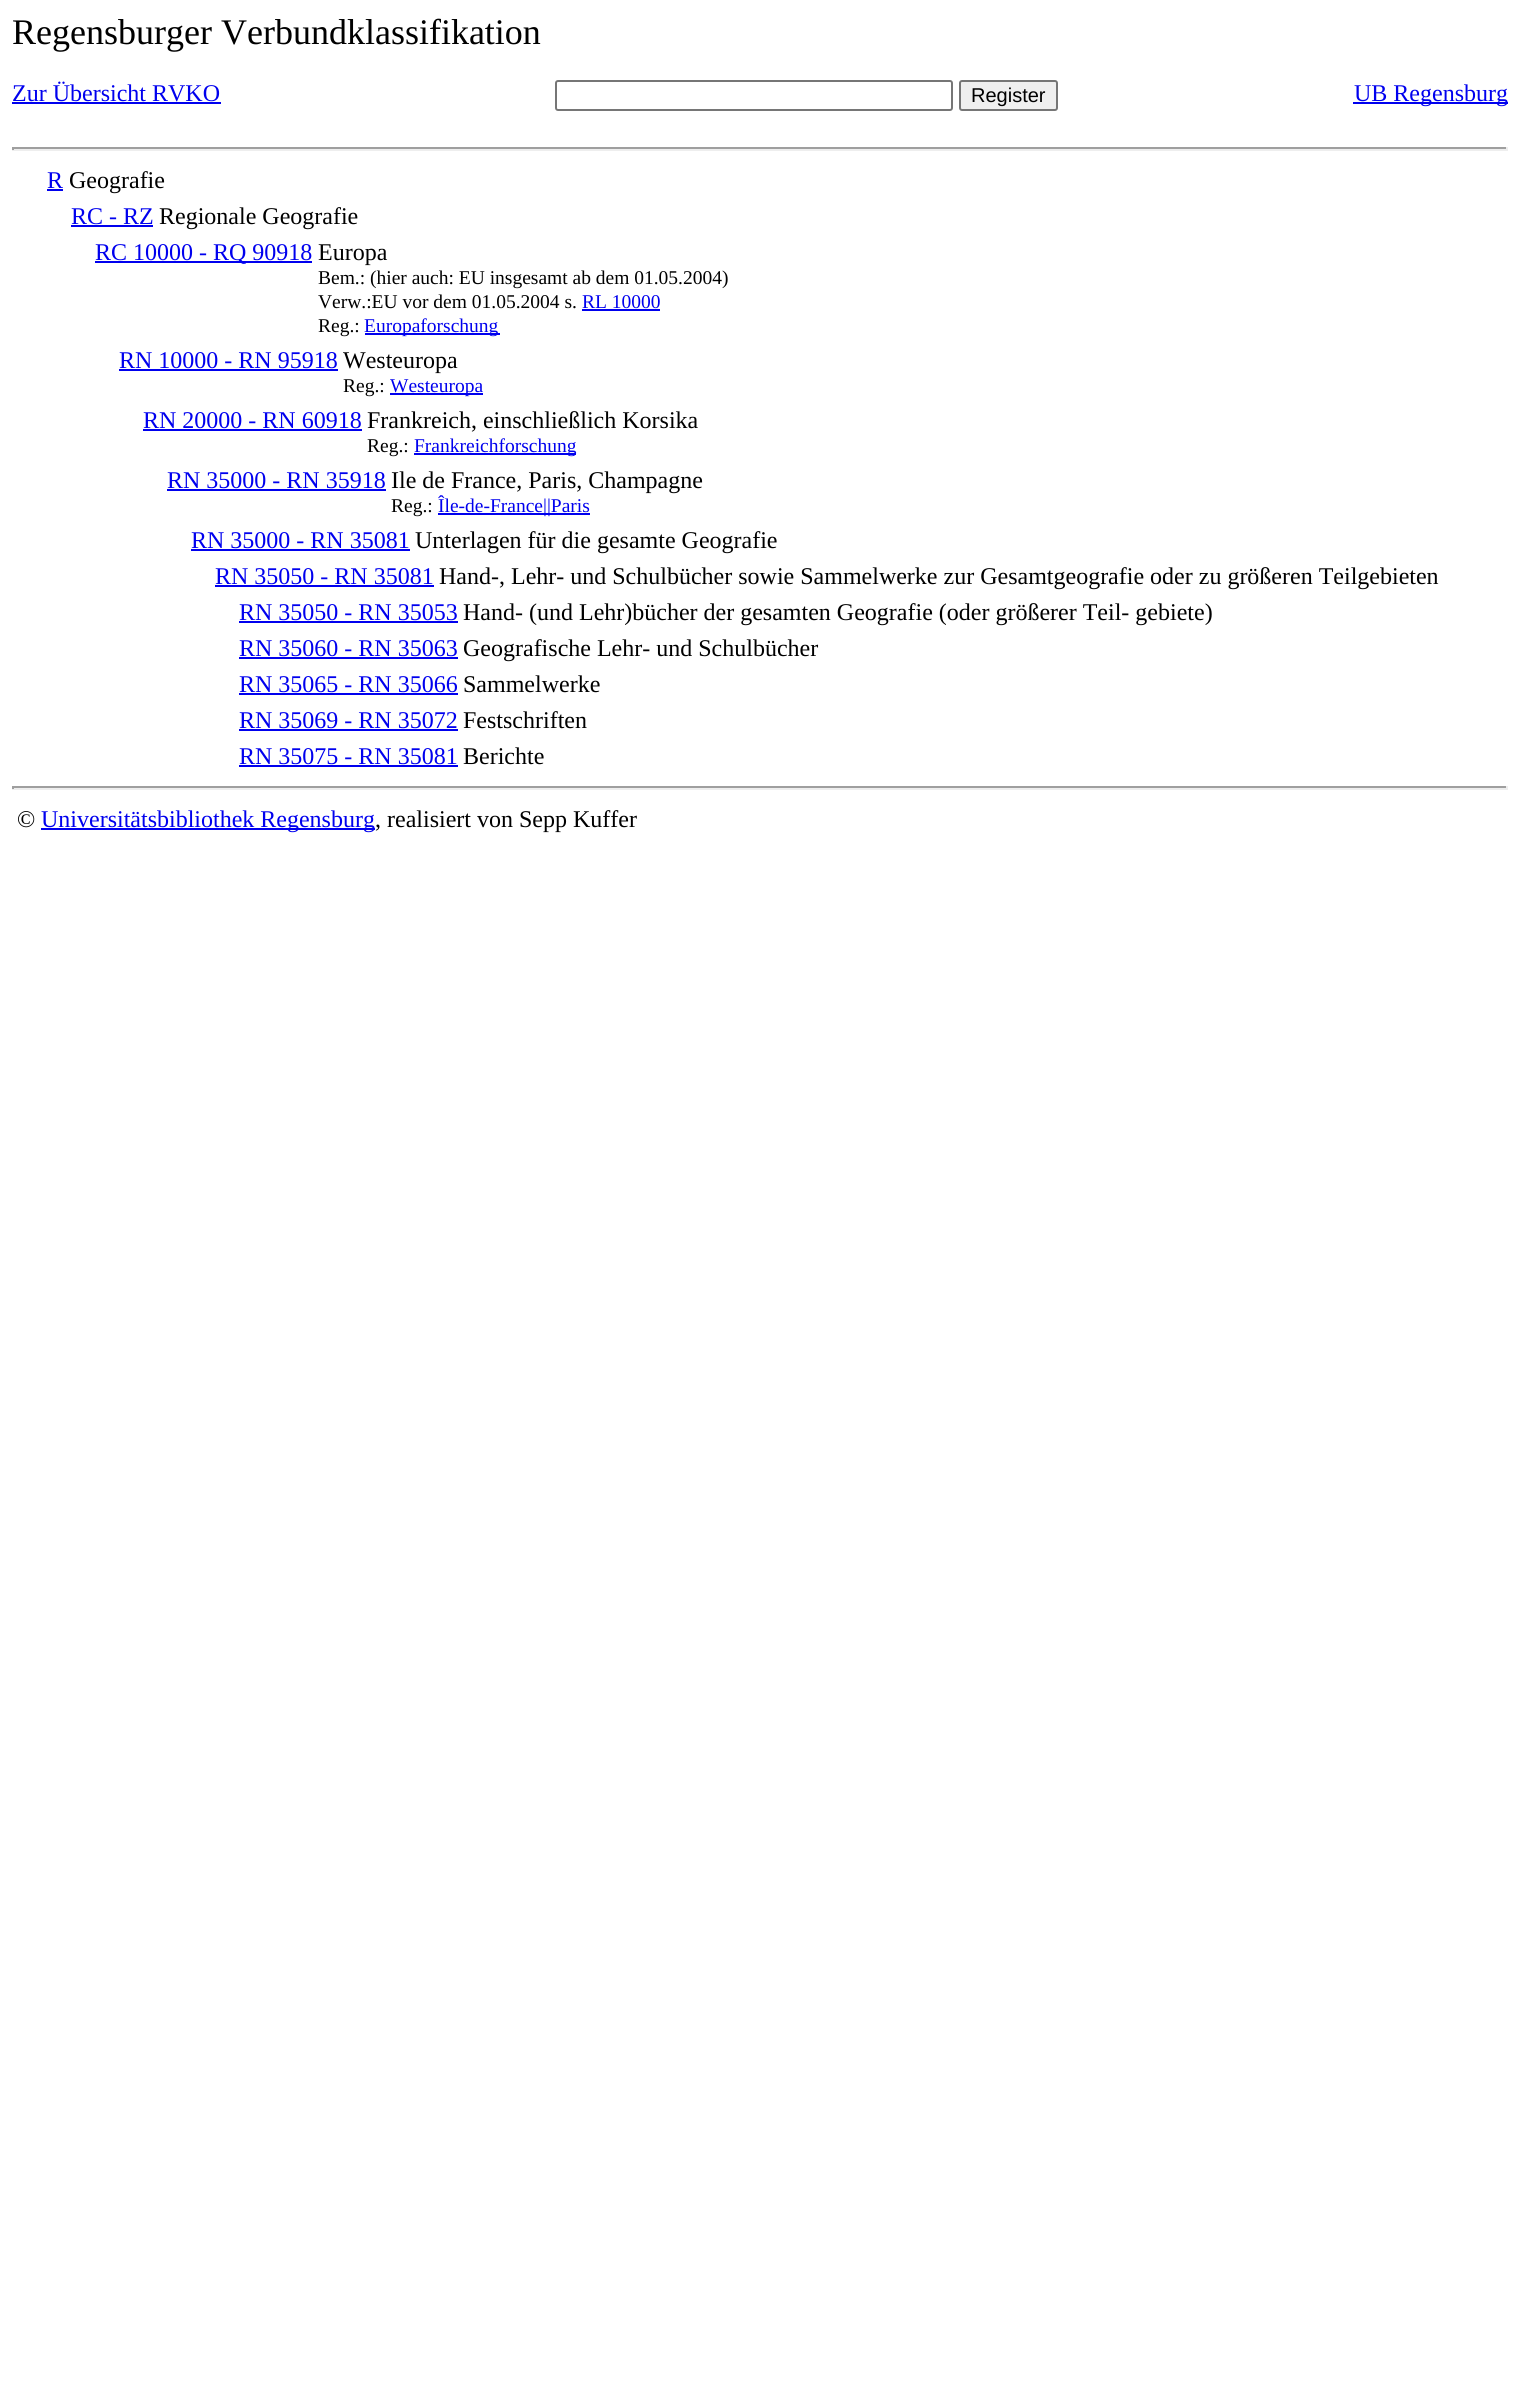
#include <cairo.h>
#include <math.h>
#include <stddef.h>

typedef struct { double x, y, w, h; unsigned color; } box_t;

static void ink(cairo_t *ctx, unsigned color) {
    cairo_set_source_rgb(ctx, (color >> 16) / 255.0, (color >> 8 & 255) / 255.0, (color & 255) / 255.0);
}

static void round_path(cairo_t *ctx, double x, double y, double w, double h, double r) {
    cairo_new_sub_path(ctx);
    cairo_arc(ctx, x + w - r, y + h - r, r, 0, M_PI / 2);
    cairo_arc(ctx, x + r, y + h - r, r, M_PI / 2, M_PI);
    cairo_arc(ctx, x + r, y + r, r, M_PI, 1.5 * M_PI);
    cairo_arc(ctx, x + w - r, y + r, r, 1.5 * M_PI, 2 * M_PI);
    cairo_close_path(ctx);
}

int main(void) {
    cairo_surface_t *surface = cairo_image_surface_create(CAIRO_FORMAT_RGB24, 1519, 2381);
    cairo_t *ctx = cairo_create(surface);
    cairo_font_options_t *options = cairo_font_options_create();
    cairo_font_options_set_hint_metrics(options, CAIRO_HINT_METRICS_OFF);
    cairo_font_options_set_hint_style(options, CAIRO_HINT_STYLE_NONE);
    cairo_set_font_options(ctx, options);
    cairo_set_miter_limit(ctx, 4);
    ink(ctx, 0xFFFFFF);
    cairo_paint(ctx);
    cairo_select_font_face(ctx, "Liberation Serif", CAIRO_FONT_SLANT_NORMAL, CAIRO_FONT_WEIGHT_NORMAL);
    cairo_set_font_size(ctx, 36);
    ink(ctx, 0x000000);
    cairo_move_to(ctx, 12, 44);
    cairo_show_text(ctx, "Regensburger Verbundklassifikation");
    cairo_set_font_size(ctx, 24);
    ink(ctx, 0x0000EE);
    cairo_move_to(ctx, 12, 101);
    cairo_show_text(ctx, "Zur Übersicht RVKO");
    cairo_rectangle(ctx, 12, 102, 209, 2);
    cairo_fill(ctx);
    round_path(ctx, 556, 81, 396, 29, 2);
    ink(ctx, 0x767676);
    cairo_stroke(ctx);
    ink(ctx, 0xEFEFEF);
    round_path(ctx, 960, 81, 97, 29, 2);
    cairo_fill_preserve(ctx);
    ink(ctx, 0x767676);
    cairo_stroke(ctx);
    cairo_select_font_face(ctx, "Liberation Sans", CAIRO_FONT_SLANT_NORMAL, CAIRO_FONT_WEIGHT_NORMAL);
    cairo_set_font_size(ctx, 20);
    ink(ctx, 0x000000);
    cairo_move_to(ctx, 971, 102);
    cairo_show_text(ctx, "Register");
    ink(ctx, 0x0000EE);
    cairo_rectangle(ctx, 1353, 102, 155, 2);
    cairo_fill(ctx);
    cairo_select_font_face(ctx, "Liberation Serif", CAIRO_FONT_SLANT_NORMAL, CAIRO_FONT_WEIGHT_NORMAL);
    cairo_set_font_size(ctx, 24);
    cairo_move_to(ctx, 1354, 101);
    cairo_show_text(ctx, "UB Regensburg");
    {
        static const box_t items[] = {
            {12, 147, 1496, 2, 0x9F9F9F},
            {1506, 147, 2, 3, 0xEEEEEE},
            {12, 149, 1496, 2, 0xEEEEEE},
            {12, 147, 2, 3, 0x9F9F9F},
        };
        for (size_t i = 0; i < sizeof items / sizeof *items; i++) {
            ink(ctx, items[i].color);
            cairo_rectangle(ctx, items[i].x, items[i].y, items[i].w, items[i].h);
            cairo_fill(ctx);
        }
    }
    ink(ctx, 0x0000EE);
    cairo_move_to(ctx, 47, 188);
    cairo_show_text(ctx, "R");
    cairo_rectangle(ctx, 47, 189, 16, 2);
    cairo_fill(ctx);
    ink(ctx, 0x000000);
    cairo_move_to(ctx, 69, 188);
    cairo_show_text(ctx, "Geografie");
    ink(ctx, 0x0000EE);
    cairo_move_to(ctx, 71, 224);
    cairo_show_text(ctx, "RC - RZ");
    cairo_rectangle(ctx, 71, 225, 82, 2);
    cairo_fill(ctx);
    ink(ctx, 0x000000);
    cairo_move_to(ctx, 159, 224);
    cairo_show_text(ctx, "Regionale Geografie");
    ink(ctx, 0x0000EE);
    cairo_rectangle(ctx, 95, 261, 217, 2);
    cairo_fill(ctx);
    cairo_move_to(ctx, 95, 260);
    cairo_show_text(ctx, "RC 10000 - RQ 90918");
    ink(ctx, 0x000000);
    cairo_move_to(ctx, 318, 260);
    cairo_show_text(ctx, "Europa");
    cairo_set_font_size(ctx, 19.5);
    cairo_move_to(ctx, 318, 284);
    cairo_show_text(ctx, "Bem.: (hier auch: EU insgesamt ab dem 01.05.2004)");
    cairo_move_to(ctx, 318, 308);
    cairo_show_text(ctx, "Verw.:EU vor dem 01.05.2004 s.");
    ink(ctx, 0x0000EE);
    cairo_move_to(ctx, 582, 308);
    cairo_show_text(ctx, "RL 10000");
    cairo_rectangle(ctx, 582, 309, 78, 2);
    cairo_fill(ctx);
    ink(ctx, 0x000000);
    cairo_move_to(ctx, 318, 332);
    cairo_show_text(ctx, "Reg.:");
    ink(ctx, 0x0000EE);
    cairo_rectangle(ctx, 365, 333, 135, 2);
    cairo_fill(ctx);
    cairo_move_to(ctx, 364, 332);
    cairo_show_text(ctx, "Europaforschung");
    cairo_set_font_size(ctx, 24);
    cairo_move_to(ctx, 119, 368);
    cairo_show_text(ctx, "RN 10000 - RN 95918");
    cairo_rectangle(ctx, 119, 369, 219, 2);
    cairo_fill(ctx);
    ink(ctx, 0x000000);
    cairo_move_to(ctx, 343, 368);
    cairo_show_text(ctx, "Westeuropa");
    cairo_set_font_size(ctx, 19.5);
    cairo_move_to(ctx, 343, 392);
    cairo_show_text(ctx, "Reg.:");
    ink(ctx, 0x0000EE);
    cairo_rectangle(ctx, 390, 393, 93, 2);
    cairo_fill(ctx);
    cairo_move_to(ctx, 390, 392);
    cairo_show_text(ctx, "Westeuropa");
    cairo_set_font_size(ctx, 24);
    cairo_move_to(ctx, 143, 428);
    cairo_show_text(ctx, "RN 20000 - RN 60918");
    cairo_rectangle(ctx, 143, 429, 219, 2);
    cairo_fill(ctx);
    ink(ctx, 0x000000);
    cairo_move_to(ctx, 367, 428);
    cairo_show_text(ctx, "Frankreich, einschließlich Korsika");
    cairo_set_font_size(ctx, 19.5);
    cairo_move_to(ctx, 367, 452);
    cairo_show_text(ctx, "Reg.:");
    ink(ctx, 0x0000EE);
    cairo_rectangle(ctx, 414, 453, 162, 2);
    cairo_fill(ctx);
    cairo_move_to(ctx, 414, 452);
    cairo_show_text(ctx, "Frankreichforschung");
    cairo_set_font_size(ctx, 24);
    cairo_move_to(ctx, 167, 488);
    cairo_show_text(ctx, "RN 35000 - RN 35918");
    cairo_rectangle(ctx, 167, 489, 219, 2);
    cairo_fill(ctx);
    ink(ctx, 0x000000);
    cairo_move_to(ctx, 391, 488);
    cairo_show_text(ctx, "Ile de France, Paris, Champagne");
    cairo_set_font_size(ctx, 19.5);
    cairo_move_to(ctx, 391, 512);
    cairo_show_text(ctx, "Reg.:");
    ink(ctx, 0x0000EE);
    cairo_rectangle(ctx, 438, 513, 152, 2);
    cairo_fill(ctx);
    cairo_move_to(ctx, 438, 512);
    cairo_show_text(ctx, "Île-de-France||Paris");
    cairo_set_font_size(ctx, 24);
    cairo_move_to(ctx, 191, 548);
    cairo_show_text(ctx, "RN 35000 - RN 35081");
    cairo_rectangle(ctx, 191, 549, 219, 2);
    cairo_fill(ctx);
    ink(ctx, 0x000000);
    cairo_move_to(ctx, 415, 548);
    cairo_show_text(ctx, "Unterlagen für die gesamte Geografie");
    ink(ctx, 0x0000EE);
    cairo_move_to(ctx, 215, 584);
    cairo_show_text(ctx, "RN 35050 - RN 35081");
    cairo_rectangle(ctx, 215, 585, 219, 2);
    cairo_fill(ctx);
    ink(ctx, 0x000000);
    cairo_move_to(ctx, 439, 584);
    cairo_show_text(ctx, "Hand-, Lehr- und Schulbücher sowie Sammelwerke zur Gesamtgeografie oder zu größeren Teilgebieten");
    ink(ctx, 0x0000EE);
    cairo_move_to(ctx, 239, 620);
    cairo_show_text(ctx, "RN 35050 - RN 35053");
    cairo_rectangle(ctx, 239, 621, 219, 2);
    cairo_fill(ctx);
    ink(ctx, 0x000000);
    cairo_move_to(ctx, 463, 620);
    cairo_show_text(ctx, "Hand- (und Lehr)bücher der gesamten Geografie (oder größerer Teil- gebiete)");
    ink(ctx, 0x0000EE);
    cairo_move_to(ctx, 239, 656);
    cairo_show_text(ctx, "RN 35060 - RN 35063");
    cairo_rectangle(ctx, 239, 657, 219, 2);
    cairo_fill(ctx);
    ink(ctx, 0x000000);
    cairo_move_to(ctx, 463, 656);
    cairo_show_text(ctx, "Geografische Lehr- und Schulbücher");
    ink(ctx, 0x0000EE);
    cairo_move_to(ctx, 239, 692);
    cairo_show_text(ctx, "RN 35065 - RN 35066");
    cairo_rectangle(ctx, 239, 693, 219, 2);
    cairo_fill(ctx);
    ink(ctx, 0x000000);
    cairo_move_to(ctx, 463, 692);
    cairo_show_text(ctx, "Sammelwerke");
    ink(ctx, 0x0000EE);
    cairo_move_to(ctx, 239, 728);
    cairo_show_text(ctx, "RN 35069 - RN 35072");
    cairo_rectangle(ctx, 239, 729, 219, 2);
    cairo_fill(ctx);
    ink(ctx, 0x000000);
    cairo_move_to(ctx, 463, 728);
    cairo_show_text(ctx, "Festschriften");
    ink(ctx, 0x0000EE);
    cairo_move_to(ctx, 239, 764);
    cairo_show_text(ctx, "RN 35075 - RN 35081");
    cairo_rectangle(ctx, 239, 765, 219, 2);
    cairo_fill(ctx);
    ink(ctx, 0x000000);
    cairo_move_to(ctx, 463, 764);
    cairo_show_text(ctx, "Berichte");
    {
        static const box_t items[] = {
            {12, 786, 1496, 2, 0x9F9F9F},
            {1506, 786, 2, 3, 0xEEEEEE},
            {12, 788, 1496, 2, 0xEEEEEE},
            {12, 786, 2, 3, 0x9F9F9F},
        };
        for (size_t i = 0; i < sizeof items / sizeof *items; i++) {
            ink(ctx, items[i].color);
            cairo_rectangle(ctx, items[i].x, items[i].y, items[i].w, items[i].h);
            cairo_fill(ctx);
        }
    }
    ink(ctx, 0x000000);
    cairo_move_to(ctx, 17, 827);
    cairo_show_text(ctx, "©");
    ink(ctx, 0x0000EE);
    cairo_rectangle(ctx, 41, 828, 334, 2);
    cairo_fill(ctx);
    cairo_move_to(ctx, 41, 827);
    cairo_show_text(ctx, "Universitätsbibliothek Regensburg");
    ink(ctx, 0x000000);
    cairo_move_to(ctx, 375, 827);
    cairo_show_text(ctx, ", realisiert von Sepp Kuffer");
    cairo_surface_write_to_png(surface, "image.png");
    cairo_font_options_destroy(options);
    cairo_destroy(ctx);
    cairo_surface_destroy(surface);
    return 0;
}
